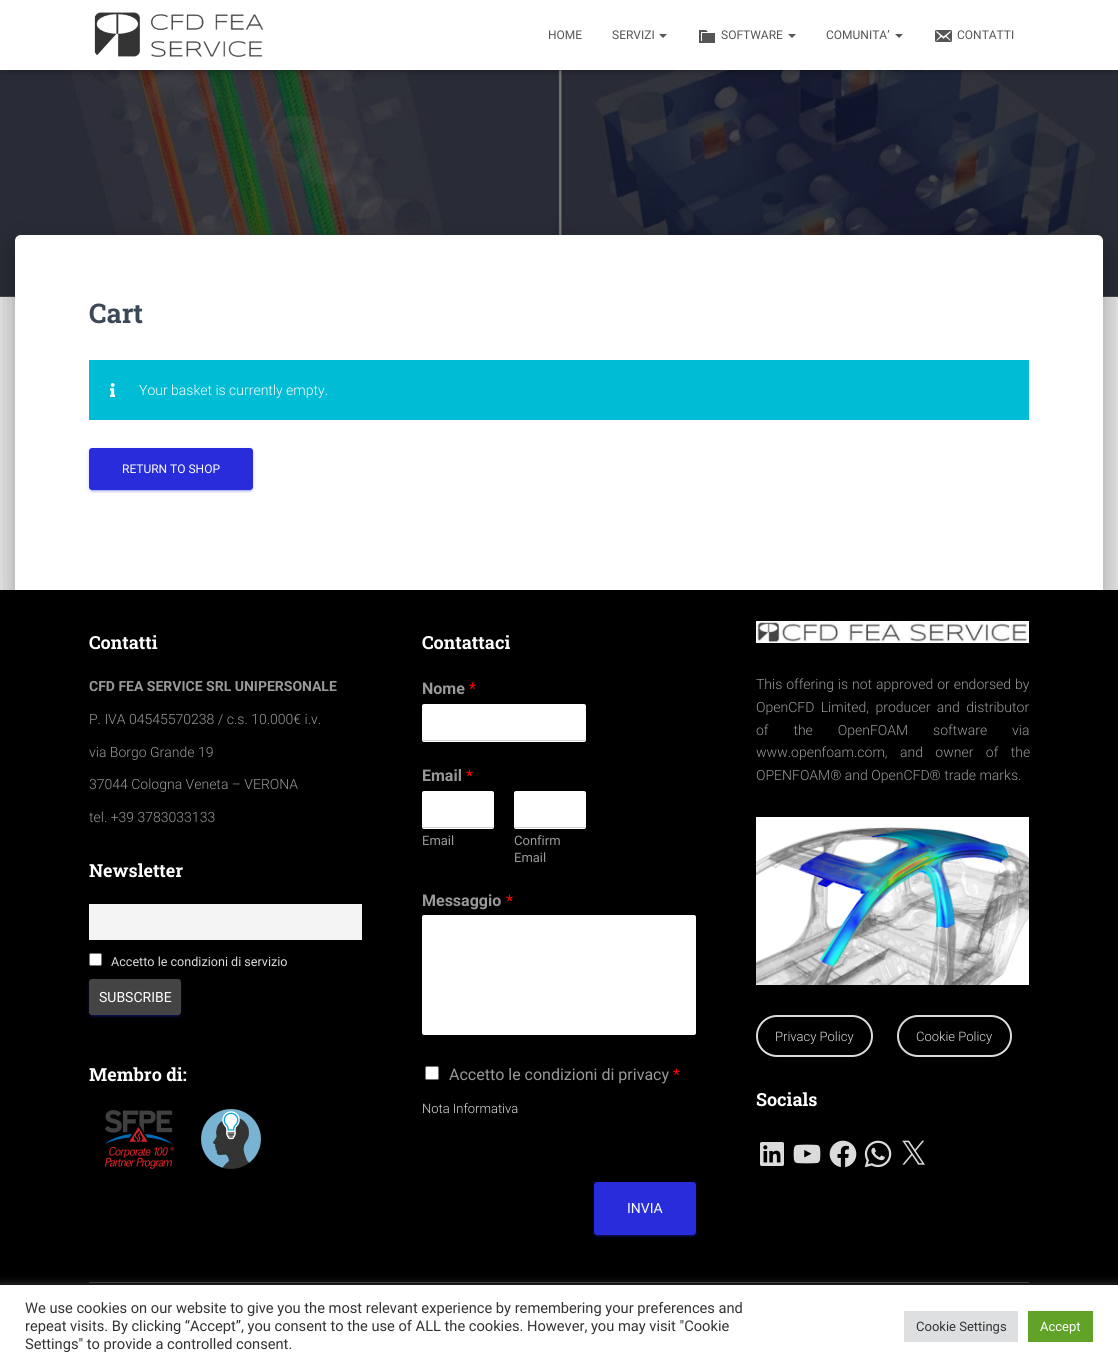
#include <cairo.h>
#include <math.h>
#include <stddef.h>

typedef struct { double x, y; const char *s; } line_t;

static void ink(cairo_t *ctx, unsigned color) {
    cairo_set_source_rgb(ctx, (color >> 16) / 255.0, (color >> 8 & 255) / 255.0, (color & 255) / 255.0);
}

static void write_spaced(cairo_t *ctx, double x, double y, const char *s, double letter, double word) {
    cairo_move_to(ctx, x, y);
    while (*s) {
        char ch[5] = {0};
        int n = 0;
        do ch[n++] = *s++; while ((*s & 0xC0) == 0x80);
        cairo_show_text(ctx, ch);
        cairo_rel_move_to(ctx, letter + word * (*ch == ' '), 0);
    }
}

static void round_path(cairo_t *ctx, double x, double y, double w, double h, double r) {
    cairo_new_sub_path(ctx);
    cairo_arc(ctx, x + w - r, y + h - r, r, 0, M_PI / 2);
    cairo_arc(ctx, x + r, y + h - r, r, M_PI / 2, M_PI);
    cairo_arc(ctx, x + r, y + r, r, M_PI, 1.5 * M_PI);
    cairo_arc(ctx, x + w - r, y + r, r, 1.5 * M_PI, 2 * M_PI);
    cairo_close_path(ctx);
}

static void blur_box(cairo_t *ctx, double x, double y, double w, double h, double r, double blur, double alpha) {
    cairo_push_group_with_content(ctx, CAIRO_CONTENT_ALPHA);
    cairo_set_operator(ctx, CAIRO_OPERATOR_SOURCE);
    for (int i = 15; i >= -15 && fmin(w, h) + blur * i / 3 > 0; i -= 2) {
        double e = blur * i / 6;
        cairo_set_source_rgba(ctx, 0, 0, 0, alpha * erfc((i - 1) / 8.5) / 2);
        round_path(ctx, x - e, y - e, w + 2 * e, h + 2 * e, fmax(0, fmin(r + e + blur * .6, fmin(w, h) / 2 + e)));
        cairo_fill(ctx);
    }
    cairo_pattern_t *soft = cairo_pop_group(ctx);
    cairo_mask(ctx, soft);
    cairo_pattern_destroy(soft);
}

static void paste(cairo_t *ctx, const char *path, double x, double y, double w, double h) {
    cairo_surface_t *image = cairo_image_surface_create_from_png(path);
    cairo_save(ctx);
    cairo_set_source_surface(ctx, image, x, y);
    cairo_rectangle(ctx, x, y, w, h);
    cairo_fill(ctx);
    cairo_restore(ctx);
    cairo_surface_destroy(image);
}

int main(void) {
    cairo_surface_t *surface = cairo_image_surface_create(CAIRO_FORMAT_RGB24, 1118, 1367);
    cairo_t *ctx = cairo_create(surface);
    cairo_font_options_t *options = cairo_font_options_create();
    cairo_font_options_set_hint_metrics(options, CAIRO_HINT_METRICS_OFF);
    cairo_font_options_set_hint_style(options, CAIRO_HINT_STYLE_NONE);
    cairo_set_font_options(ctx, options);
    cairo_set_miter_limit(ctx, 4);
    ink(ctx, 0xE5E5E5);
    cairo_paint(ctx);
    ink(ctx, 0x737373);
    cairo_rectangle(ctx, 0, 296, 1118, 1);
    cairo_fill(ctx);
    paste(ctx, "media/4.png", 0, 70, 1118, 227);
    ink(ctx, 0x000000);
    blur_box(ctx, 2, 6, 1114, 66, 0, 2.5, 0.1);
    blur_box(ctx, 0, 1, 1118, 70, 0, 5, 0.12);
    blur_box(ctx, 6, 7, 1106, 58, 0, 5, 0.42);
    ink(ctx, 0xFFFFFF);
    cairo_rectangle(ctx, 0, 0, 1118, 70);
    cairo_fill(ctx);
    paste(ctx, "media/1.png", 94, 12, 170, 45);
    cairo_select_font_face(ctx, "Roboto", CAIRO_FONT_SLANT_NORMAL, CAIRO_FONT_WEIGHT_NORMAL);
    cairo_set_font_size(ctx, 12);
    ink(ctx, 0x555555);
    cairo_move_to(ctx, 548, 39);
    cairo_show_text(ctx, "HOME");
    cairo_move_to(ctx, 612, 39);
    cairo_show_text(ctx, "SERVIZI");
    cairo_new_path(ctx);
    cairo_move_to(ctx, 659, 34);
    cairo_line_to(ctx, 667, 34);
    cairo_line_to(ctx, 663, 38);
    cairo_close_path(ctx);
    cairo_fill(ctx);
    paste(ctx, "media/2.png", 699, 30, 16, 13);
    cairo_move_to(ctx, 721, 39);
    cairo_show_text(ctx, "SOFTWARE");
    cairo_new_path(ctx);
    cairo_move_to(ctx, 788, 34);
    cairo_line_to(ctx, 796, 34);
    cairo_line_to(ctx, 792, 38);
    cairo_close_path(ctx);
    cairo_fill(ctx);
    cairo_move_to(ctx, 826, 39);
    cairo_show_text(ctx, "COMUNITA’");
    cairo_new_path(ctx);
    cairo_move_to(ctx, 895, 34);
    cairo_line_to(ctx, 903, 34);
    cairo_line_to(ctx, 899, 38);
    cairo_close_path(ctx);
    cairo_fill(ctx);
    paste(ctx, "media/3.png", 935, 30, 17, 12);
    cairo_move_to(ctx, 957, 39);
    cairo_show_text(ctx, "CONTATTI");
    ink(ctx, 0x000000);
    cairo_rectangle(ctx, 0, 590, 1118, 695);
    cairo_fill(ctx);
    ink(ctx, 0x000000);
    blur_box(ctx, 20, 248, 1078, 345, 1, 5, 0.2);
    blur_box(ctx, 10, 236, 1098, 365, 11, 15, 0.12);
    blur_box(ctx, 13, 249, 1092, 359, 8, 12, 0.14);
    ink(ctx, 0xFFFFFF);
    cairo_new_path(ctx);
    cairo_move_to(ctx, 21, 235);
    cairo_line_to(ctx, 1097, 235);
    cairo_curve_to(ctx, 1100.5, 235, 1103, 237.5, 1103, 241);
    cairo_line_to(ctx, 1103, 590);
    cairo_line_to(ctx, 15, 590);
    cairo_line_to(ctx, 15, 241);
    cairo_curve_to(ctx, 15, 237.5, 17.5, 235, 21, 235);
    cairo_close_path(ctx);
    cairo_fill(ctx);
    cairo_select_font_face(ctx, "Roboto Slab", CAIRO_FONT_SLANT_NORMAL, CAIRO_FONT_WEIGHT_BOLD);
    cairo_set_font_size(ctx, 27);
    ink(ctx, 0x3C4858);
    cairo_move_to(ctx, 89, 323);
    cairo_show_text(ctx, "Cart");
    ink(ctx, 0x00BCD4);
    cairo_rectangle(ctx, 89, 360, 940, 60);
    cairo_fill(ctx);
    paste(ctx, "media/5.png", 110, 383, 5, 14);
    cairo_select_font_face(ctx, "Roboto Light", CAIRO_FONT_SLANT_NORMAL, CAIRO_FONT_WEIGHT_NORMAL);
    cairo_set_font_size(ctx, 14);
    ink(ctx, 0xFFFFFF);
    cairo_move_to(ctx, 139, 395);
    cairo_show_text(ctx, "Your basket is currently empty.");
    ink(ctx, 0x292CDB);
    blur_box(ctx, 89, 449, 164, 42, 3, 2.5, 0.12);
    blur_box(ctx, 91, 453, 160, 38, 1, 0.5, 0.2);
    blur_box(ctx, 89, 450, 164, 42, 3, 1, 0.14);
    ink(ctx, 0x292CDB);
    round_path(ctx, 89, 448, 164, 42, 3);
    cairo_fill(ctx);
    cairo_select_font_face(ctx, "Roboto", CAIRO_FONT_SLANT_NORMAL, CAIRO_FONT_WEIGHT_NORMAL);
    cairo_set_font_size(ctx, 12);
    ink(ctx, 0xFFFFFF);
    cairo_move_to(ctx, 122, 473);
    cairo_show_text(ctx, "RETURN TO SHOP");
    cairo_select_font_face(ctx, "Roboto Slab", CAIRO_FONT_SLANT_NORMAL, CAIRO_FONT_WEIGHT_BOLD);
    cairo_set_font_size(ctx, 18);
    cairo_move_to(ctx, 89, 649);
    cairo_show_text(ctx, "Contatti");
    cairo_select_font_face(ctx, "Roboto", CAIRO_FONT_SLANT_NORMAL, CAIRO_FONT_WEIGHT_BOLD);
    cairo_set_font_size(ctx, 14);
    ink(ctx, 0x999999);
    cairo_move_to(ctx, 89, 691);
    cairo_show_text(ctx, "CFD FEA SERVICE SRL UNIPERSONALE");
    cairo_select_font_face(ctx, "Roboto Light", CAIRO_FONT_SLANT_NORMAL, CAIRO_FONT_WEIGHT_NORMAL);
    {
        static const line_t items[] = {
            {89, 724, "P. IVA 04545570238 / c.s. 10.000€ i.v."},
            {89, 757, "via Borgo Grande 19"},
            {89, 789, "37044 Cologna Veneta – VERONA"},
            {89, 822, "tel. +39 3783033133"},
        };
        for (size_t i = 0; i < sizeof items / sizeof *items; i++) {
            cairo_move_to(ctx, items[i].x, items[i].y);
            cairo_show_text(ctx, items[i].s);
        }
    }
    cairo_select_font_face(ctx, "Roboto Slab", CAIRO_FONT_SLANT_NORMAL, CAIRO_FONT_WEIGHT_BOLD);
    cairo_set_font_size(ctx, 18);
    ink(ctx, 0xFFFFFF);
    cairo_move_to(ctx, 89, 877);
    cairo_show_text(ctx, "Newsletter");
    ink(ctx, 0xF4F4F4);
    cairo_rectangle(ctx, 89, 904, 273, 36);
    cairo_fill(ctx);
    ink(ctx, 0xFFFFFF);
    round_path(ctx, 89.5, 953.5, 12, 12, 1.5);
    cairo_fill_preserve(ctx);
    ink(ctx, 0x767676);
    cairo_set_line_width(ctx, 1);
    cairo_stroke(ctx);
    cairo_select_font_face(ctx, "Roboto", CAIRO_FONT_SLANT_NORMAL, CAIRO_FONT_WEIGHT_NORMAL);
    cairo_set_font_size(ctx, 12.6);
    ink(ctx, 0xDBDBDB);
    cairo_move_to(ctx, 111, 966);
    cairo_show_text(ctx, "Accetto le condizioni di servizio");
    ink(ctx, 0x292CDB);
    blur_box(ctx, 89, 980, 92, 36, 3, 2.5, 0.12);
    blur_box(ctx, 91, 984, 88, 32, 1, 0.5, 0.2);
    blur_box(ctx, 89, 981, 92, 36, 3, 1, 0.14);
    ink(ctx, 0x444444);
    round_path(ctx, 89, 979, 92, 36, 3);
    cairo_fill(ctx);
    cairo_set_font_size(ctx, 14);
    ink(ctx, 0xFFFFFF);
    cairo_move_to(ctx, 99, 1002);
    cairo_show_text(ctx, "SUBSCRIBE");
    cairo_select_font_face(ctx, "Roboto Slab", CAIRO_FONT_SLANT_NORMAL, CAIRO_FONT_WEIGHT_BOLD);
    cairo_set_font_size(ctx, 18);
    cairo_move_to(ctx, 89, 1081);
    cairo_show_text(ctx, "Membro di:");
    paste(ctx, "media/6.png", 104, 1110, 70, 59);
    paste(ctx, "media/7.png", 201, 1109, 60, 60);
    cairo_move_to(ctx, 422, 649);
    cairo_show_text(ctx, "Contattaci");
    cairo_select_font_face(ctx, "Roboto", CAIRO_FONT_SLANT_NORMAL, CAIRO_FONT_WEIGHT_BOLD);
    cairo_set_font_size(ctx, 16);
    ink(ctx, 0x999999);
    cairo_move_to(ctx, 422, 694);
    cairo_show_text(ctx, "Nome");
    cairo_select_font_face(ctx, "Roboto", CAIRO_FONT_SLANT_NORMAL, CAIRO_FONT_WEIGHT_NORMAL);
    ink(ctx, 0xFF0000);
    cairo_move_to(ctx, 469, 694);
    cairo_show_text(ctx, "*");
    ink(ctx, 0xFFFFFF);
    round_path(ctx, 422, 704, 164, 38, 2);
    cairo_fill(ctx);
    ink(ctx, 0xD2D2D2);
    cairo_rectangle(ctx, 422, 740, 164, 1);
    cairo_fill(ctx);
    cairo_select_font_face(ctx, "Roboto", CAIRO_FONT_SLANT_NORMAL, CAIRO_FONT_WEIGHT_BOLD);
    ink(ctx, 0x999999);
    cairo_move_to(ctx, 422, 781);
    cairo_show_text(ctx, "Email");
    cairo_select_font_face(ctx, "Roboto", CAIRO_FONT_SLANT_NORMAL, CAIRO_FONT_WEIGHT_NORMAL);
    ink(ctx, 0xFF0000);
    cairo_move_to(ctx, 466, 781);
    cairo_show_text(ctx, "*");
    ink(ctx, 0xFFFFFF);
    round_path(ctx, 422, 791, 72, 38, 2);
    cairo_fill(ctx);
    ink(ctx, 0xD2D2D2);
    cairo_rectangle(ctx, 422, 827, 72, 1);
    cairo_fill(ctx);
    cairo_set_font_size(ctx, 13);
    ink(ctx, 0x999999);
    cairo_move_to(ctx, 422, 845);
    cairo_show_text(ctx, "Email");
    ink(ctx, 0xFFFFFF);
    round_path(ctx, 514, 791, 72, 38, 2);
    cairo_fill(ctx);
    ink(ctx, 0xD2D2D2);
    cairo_rectangle(ctx, 514, 827, 72, 1);
    cairo_fill(ctx);
    ink(ctx, 0x999999);
    cairo_move_to(ctx, 514, 845);
    cairo_show_text(ctx, "Confirm");
    cairo_move_to(ctx, 514, 862);
    cairo_show_text(ctx, "Email");
    cairo_select_font_face(ctx, "Roboto", CAIRO_FONT_SLANT_NORMAL, CAIRO_FONT_WEIGHT_BOLD);
    cairo_set_font_size(ctx, 16);
    cairo_move_to(ctx, 422, 906);
    cairo_show_text(ctx, "Messaggio");
    cairo_select_font_face(ctx, "Roboto", CAIRO_FONT_SLANT_NORMAL, CAIRO_FONT_WEIGHT_NORMAL);
    ink(ctx, 0xFF0000);
    cairo_move_to(ctx, 506, 906);
    cairo_show_text(ctx, "*");
    ink(ctx, 0xFFFFFF);
    round_path(ctx, 422, 915, 274, 120, 2);
    cairo_fill(ctx);
    round_path(ctx, 425.5, 1066.5, 13, 13, 1.5);
    cairo_fill_preserve(ctx);
    ink(ctx, 0x767676);
    cairo_stroke(ctx);
    ink(ctx, 0x999999);
    cairo_move_to(ctx, 449, 1080);
    cairo_show_text(ctx, "Accetto le condizioni di privacy");
    ink(ctx, 0xFF0000);
    cairo_move_to(ctx, 673, 1080);
    cairo_show_text(ctx, "*");
    cairo_select_font_face(ctx, "Roboto Light", CAIRO_FONT_SLANT_NORMAL, CAIRO_FONT_WEIGHT_NORMAL);
    cairo_set_font_size(ctx, 13);
    ink(ctx, 0xDBDBDB);
    cairo_move_to(ctx, 422, 1113);
    cairo_show_text(ctx, "Nota Informativa");
    ink(ctx, 0x292CDB);
    blur_box(ctx, 594, 1183, 102, 53, 3, 2.5, 0.12);
    blur_box(ctx, 596, 1187, 98, 49, 1, 0.5, 0.2);
    blur_box(ctx, 594, 1184, 102, 53, 3, 1, 0.14);
    ink(ctx, 0x292CDB);
    round_path(ctx, 594, 1182, 102, 53, 3);
    cairo_fill(ctx);
    cairo_select_font_face(ctx, "Roboto", CAIRO_FONT_SLANT_NORMAL, CAIRO_FONT_WEIGHT_NORMAL);
    cairo_set_font_size(ctx, 14);
    ink(ctx, 0xFFFFFF);
    cairo_move_to(ctx, 627, 1213);
    cairo_show_text(ctx, "INVIA");
    paste(ctx, "media/8.png", 756, 621, 273, 22);
    cairo_select_font_face(ctx, "Roboto Light", CAIRO_FONT_SLANT_NORMAL, CAIRO_FONT_WEIGHT_NORMAL);
    ink(ctx, 0x999999);
    write_spaced(ctx, 756, 689, "This offering is not approved or endorsed by", 0, 0.5);
    write_spaced(ctx, 756, 712, "OpenCFD Limited, producer and distributor", 0, 3);
    write_spaced(ctx, 756, 735, "of the OpenFOAM software via", 0, 21.5);
    write_spaced(ctx, 756, 757, "www.openfoam.com, and owner of the", 0, 9);
    cairo_move_to(ctx, 756, 780);
    cairo_show_text(ctx, "OPENFOAM® and OpenCFD® trade marks.");
    paste(ctx, "media/9.png", 756, 817, 273, 168);
    round_path(ctx, 757, 1016, 115, 40, 20);
    ink(ctx, 0xDBDBDB);
    cairo_set_line_width(ctx, 2);
    cairo_stroke(ctx);
    cairo_set_font_size(ctx, 13);
    cairo_move_to(ctx, 775, 1041);
    cairo_show_text(ctx, "Privacy Policy");
    round_path(ctx, 898, 1016, 113, 40, 20);
    cairo_stroke(ctx);
    cairo_move_to(ctx, 916, 1041);
    cairo_show_text(ctx, "Cookie Policy");
    cairo_select_font_face(ctx, "Roboto Slab", CAIRO_FONT_SLANT_NORMAL, CAIRO_FONT_WEIGHT_BOLD);
    cairo_set_font_size(ctx, 18);
    ink(ctx, 0xFFFFFF);
    cairo_move_to(ctx, 756, 1106);
    cairo_show_text(ctx, "Socials");
    paste(ctx, "media/10.png", 760, 1142, 24, 24);
    paste(ctx, "media/11.png", 793, 1144, 28, 20);
    paste(ctx, "media/12.png", 829, 1140, 28, 28);
    paste(ctx, "media/13.png", 864, 1140, 28, 28);
    paste(ctx, "media/14.png", 902, 1140, 23, 25);
    ink(ctx, 0x333333);
    cairo_rectangle(ctx, 89, 1282, 940, 1);
    cairo_fill(ctx);
    ink(ctx, 0xACABAB);
    blur_box(ctx, 0, 1284, 1118, 82, 0, 5, 0.3);
    ink(ctx, 0xFFFFFF);
    cairo_rectangle(ctx, 0, 1285, 1118, 82);
    cairo_fill(ctx);
    cairo_select_font_face(ctx, "Roboto", CAIRO_FONT_SLANT_NORMAL, CAIRO_FONT_WEIGHT_NORMAL);
    cairo_set_font_size(ctx, 14.65);
    ink(ctx, 0x333333);
    {
        static const line_t items[] = {
            {25, 1313, "We use cookies on our website to give you the most relevant experience by remembering your preferences and"},
            {25, 1331, "repeat visits. By clicking “Accept”, you consent to the use of ALL the cookies. However, you may visit \"Cookie"},
            {25, 1349, "Settings\" to provide a controlled consent."},
        };
        for (size_t i = 0; i < sizeof items / sizeof *items; i++) {
            cairo_move_to(ctx, items[i].x, items[i].y);
            cairo_show_text(ctx, items[i].s);
        }
    }
    ink(ctx, 0xDEDFE0);
    cairo_rectangle(ctx, 904, 1311, 114, 31);
    cairo_fill(ctx);
    cairo_set_font_size(ctx, 13);
    ink(ctx, 0x333333);
    cairo_move_to(ctx, 916, 1331);
    cairo_show_text(ctx, "Cookie Settings");
    ink(ctx, 0x61A229);
    cairo_rectangle(ctx, 1028, 1311, 65, 31);
    cairo_fill(ctx);
    ink(ctx, 0xFFFFFF);
    cairo_move_to(ctx, 1040, 1331);
    cairo_show_text(ctx, "Accept");
    cairo_surface_write_to_png(surface, "image.png");
    cairo_font_options_destroy(options);
    cairo_destroy(ctx);
    cairo_surface_destroy(surface);
    return 0;
}
